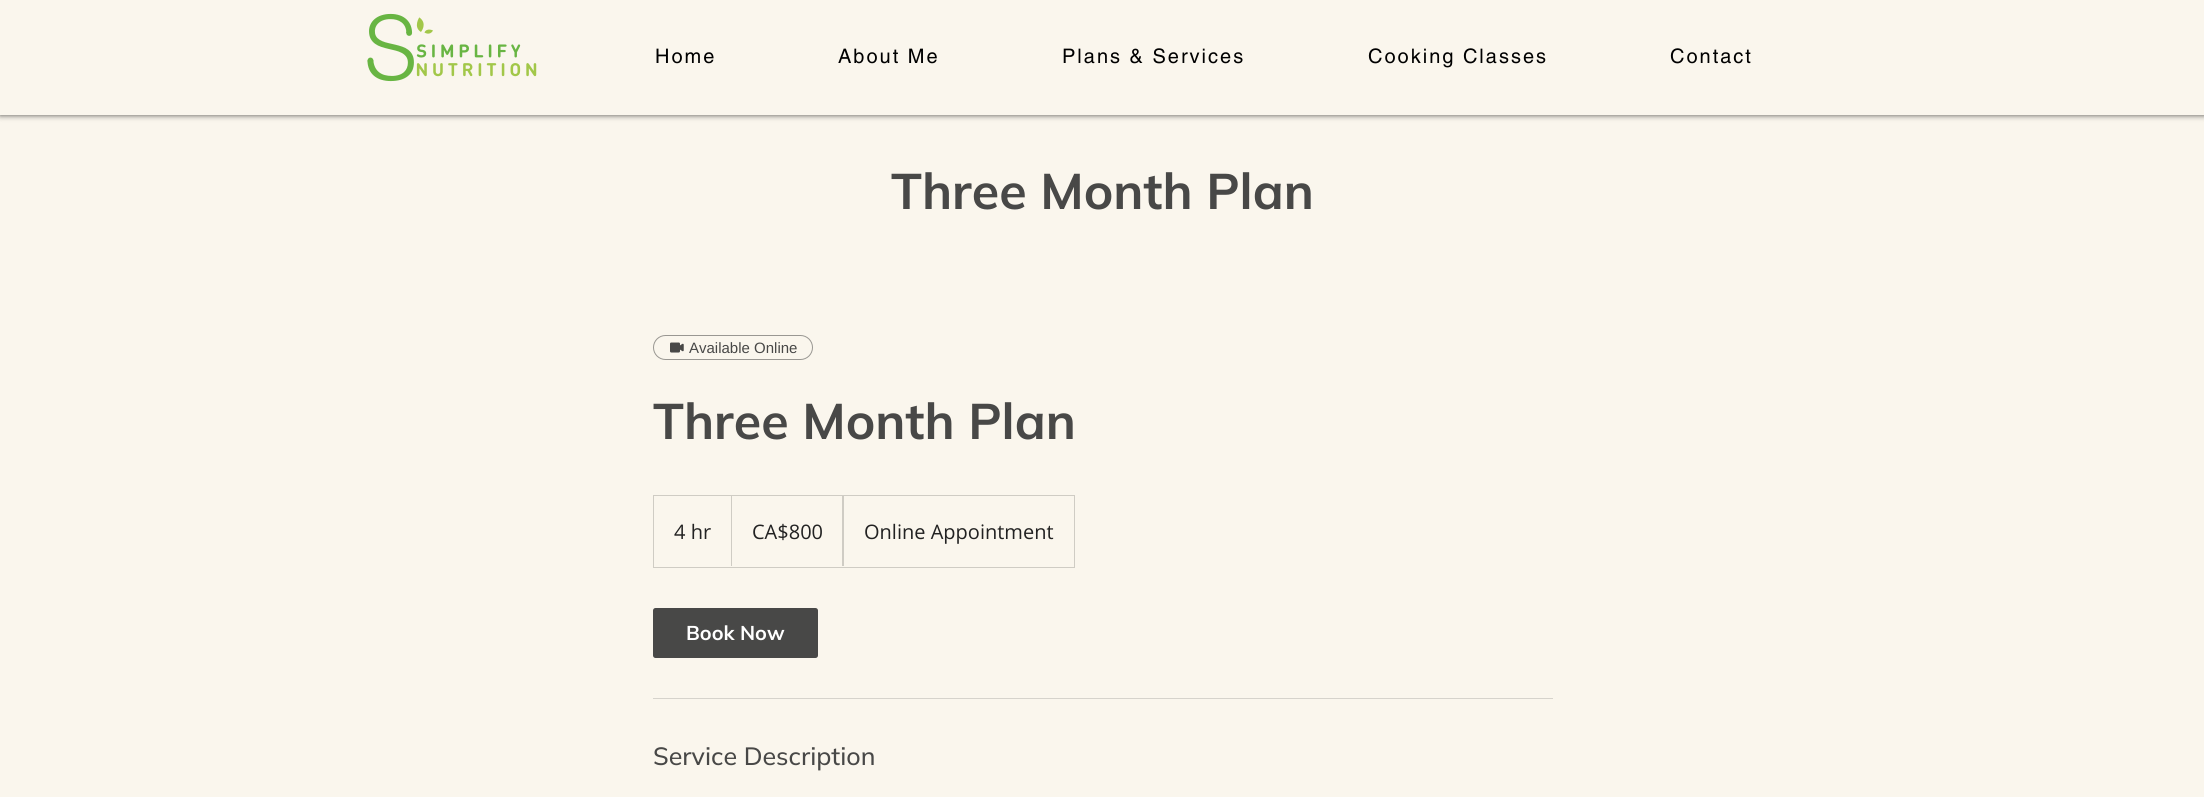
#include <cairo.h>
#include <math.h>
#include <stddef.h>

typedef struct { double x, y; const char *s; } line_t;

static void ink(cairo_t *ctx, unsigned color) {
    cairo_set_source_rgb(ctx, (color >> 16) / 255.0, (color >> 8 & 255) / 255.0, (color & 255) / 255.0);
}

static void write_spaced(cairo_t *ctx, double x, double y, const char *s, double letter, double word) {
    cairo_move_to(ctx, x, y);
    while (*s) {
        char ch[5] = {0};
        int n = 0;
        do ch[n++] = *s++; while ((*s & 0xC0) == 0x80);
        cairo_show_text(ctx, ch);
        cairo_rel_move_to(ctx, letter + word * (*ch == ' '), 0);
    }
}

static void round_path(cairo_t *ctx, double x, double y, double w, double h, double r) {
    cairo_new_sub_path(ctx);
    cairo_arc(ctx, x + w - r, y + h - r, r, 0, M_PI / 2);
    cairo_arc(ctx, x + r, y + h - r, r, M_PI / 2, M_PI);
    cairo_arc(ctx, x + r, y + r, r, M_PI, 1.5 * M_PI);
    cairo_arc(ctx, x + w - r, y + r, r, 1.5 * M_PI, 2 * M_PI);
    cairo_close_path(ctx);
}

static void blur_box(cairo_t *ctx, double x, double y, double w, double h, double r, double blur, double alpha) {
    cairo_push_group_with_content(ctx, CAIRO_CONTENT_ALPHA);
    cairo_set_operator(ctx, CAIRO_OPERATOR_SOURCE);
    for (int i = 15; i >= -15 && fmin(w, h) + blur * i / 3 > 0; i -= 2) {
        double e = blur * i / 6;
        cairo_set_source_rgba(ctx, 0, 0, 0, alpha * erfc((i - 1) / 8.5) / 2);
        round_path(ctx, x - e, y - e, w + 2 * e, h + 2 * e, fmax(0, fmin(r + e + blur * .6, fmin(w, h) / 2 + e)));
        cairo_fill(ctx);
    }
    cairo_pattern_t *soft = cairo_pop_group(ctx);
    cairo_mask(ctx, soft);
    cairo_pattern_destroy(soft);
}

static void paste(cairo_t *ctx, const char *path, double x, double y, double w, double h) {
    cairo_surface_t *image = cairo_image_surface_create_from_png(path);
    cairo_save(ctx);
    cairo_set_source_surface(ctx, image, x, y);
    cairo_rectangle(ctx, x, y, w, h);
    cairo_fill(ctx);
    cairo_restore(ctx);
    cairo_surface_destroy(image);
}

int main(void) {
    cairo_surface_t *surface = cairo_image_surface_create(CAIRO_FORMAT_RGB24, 2204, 797);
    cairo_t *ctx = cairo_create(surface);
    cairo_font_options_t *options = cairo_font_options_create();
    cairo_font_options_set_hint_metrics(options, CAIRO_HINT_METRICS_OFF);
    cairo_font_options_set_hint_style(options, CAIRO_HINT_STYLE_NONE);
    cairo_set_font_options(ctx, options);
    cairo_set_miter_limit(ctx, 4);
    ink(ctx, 0xFAF6ED);
    cairo_paint(ctx);
    ink(ctx, 0x000000);
    blur_box(ctx, 0, 0, 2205, 115, 0, 3, 0.7);
    ink(ctx, 0xFAF6ED);
    cairo_rectangle(ctx, 0, 0, 2204, 115);
    cairo_fill(ctx);
    paste(ctx, "media/1.png", 367, 13, 170, 69);
    cairo_select_font_face(ctx, "helvetica", CAIRO_FONT_SLANT_NORMAL, CAIRO_FONT_WEIGHT_NORMAL);
    cairo_set_font_size(ctx, 20);
    ink(ctx, 0x000000);
    {
        static const line_t items[] = {
            {655, 63, "Home"},
            {838, 63, "About Me"},
            {1062, 63, "Plans & Services"},
            {1368, 63, "Cooking Classes"},
            {1670, 63, "Contact"},
        };
        for (size_t i = 0; i < sizeof items / sizeof *items; i++) {
            write_spaced(ctx, items[i].x, items[i].y, items[i].s, 2, 0);
        }
    }
    cairo_select_font_face(ctx, "Mulish", CAIRO_FONT_SLANT_NORMAL, CAIRO_FONT_WEIGHT_BOLD);
    cairo_set_font_size(ctx, 50);
    ink(ctx, 0x484847);
    cairo_move_to(ctx, 891, 209);
    cairo_show_text(ctx, "Three Month Plan");
    round_path(ctx, 653.5, 335.5, 159, 24, 12);
    ink(ctx, 0x999792);
    cairo_set_line_width(ctx, 1);
    cairo_stroke(ctx);
    paste(ctx, "media/2.png", 670, 342, 14, 11);
    cairo_select_font_face(ctx, "Liberation Sans", CAIRO_FONT_SLANT_NORMAL, CAIRO_FONT_WEIGHT_NORMAL);
    cairo_set_font_size(ctx, 15);
    ink(ctx, 0x484847);
    cairo_move_to(ctx, 689, 353);
    cairo_show_text(ctx, "Available Online");
    cairo_select_font_face(ctx, "Mulish", CAIRO_FONT_SLANT_NORMAL, CAIRO_FONT_WEIGHT_BOLD);
    cairo_set_font_size(ctx, 50);
    cairo_move_to(ctx, 653, 439);
    cairo_show_text(ctx, "Three Month Plan");
    cairo_rectangle(ctx, 653.5, 495.5, 421, 72);
    ink(ctx, 0xCFCCC4);
    cairo_stroke(ctx);
    cairo_select_font_face(ctx, "Open Sans", CAIRO_FONT_SLANT_NORMAL, CAIRO_FONT_WEIGHT_NORMAL);
    cairo_set_font_size(ctx, 20);
    ink(ctx, 0x222222);
    cairo_move_to(ctx, 674, 539);
    cairo_show_text(ctx, "4 hr");
    ink(ctx, 0xCFCCC4);
    cairo_new_path(ctx);
    cairo_move_to(ctx, 731, 566);
    cairo_line_to(ctx, 731, 495);
    cairo_line_to(ctx, 732, 496);
    cairo_line_to(ctx, 732, 566);
    cairo_close_path(ctx);
    cairo_fill(ctx);
    ink(ctx, 0x222222);
    cairo_move_to(ctx, 752, 539);
    cairo_show_text(ctx, "CA$800");
    ink(ctx, 0xCFCCC4);
    cairo_new_path(ctx);
    cairo_move_to(ctx, 842, 566);
    cairo_line_to(ctx, 842, 495);
    cairo_line_to(ctx, 844, 496);
    cairo_line_to(ctx, 844, 566);
    cairo_close_path(ctx);
    cairo_fill(ctx);
    ink(ctx, 0x222222);
    cairo_move_to(ctx, 864, 539);
    cairo_show_text(ctx, "Online Appointment");
    ink(ctx, 0x484847);
    round_path(ctx, 653, 608, 165, 50, 2.5);
    cairo_fill(ctx);
    cairo_select_font_face(ctx, "Mulish", CAIRO_FONT_SLANT_NORMAL, CAIRO_FONT_WEIGHT_BOLD);
    ink(ctx, 0xFFFFFF);
    cairo_move_to(ctx, 686, 640);
    cairo_show_text(ctx, "Book Now");
    ink(ctx, 0xD6D3CC);
    cairo_rectangle(ctx, 653, 698, 900, 1);
    cairo_fill(ctx);
    cairo_select_font_face(ctx, "Mulish Medium", CAIRO_FONT_SLANT_NORMAL, CAIRO_FONT_WEIGHT_NORMAL);
    cairo_set_font_size(ctx, 25);
    ink(ctx, 0x484847);
    cairo_move_to(ctx, 653, 765);
    cairo_show_text(ctx, "Service Description");
    cairo_surface_write_to_png(surface, "image.png");
    cairo_font_options_destroy(options);
    cairo_destroy(ctx);
    cairo_surface_destroy(surface);
    return 0;
}
